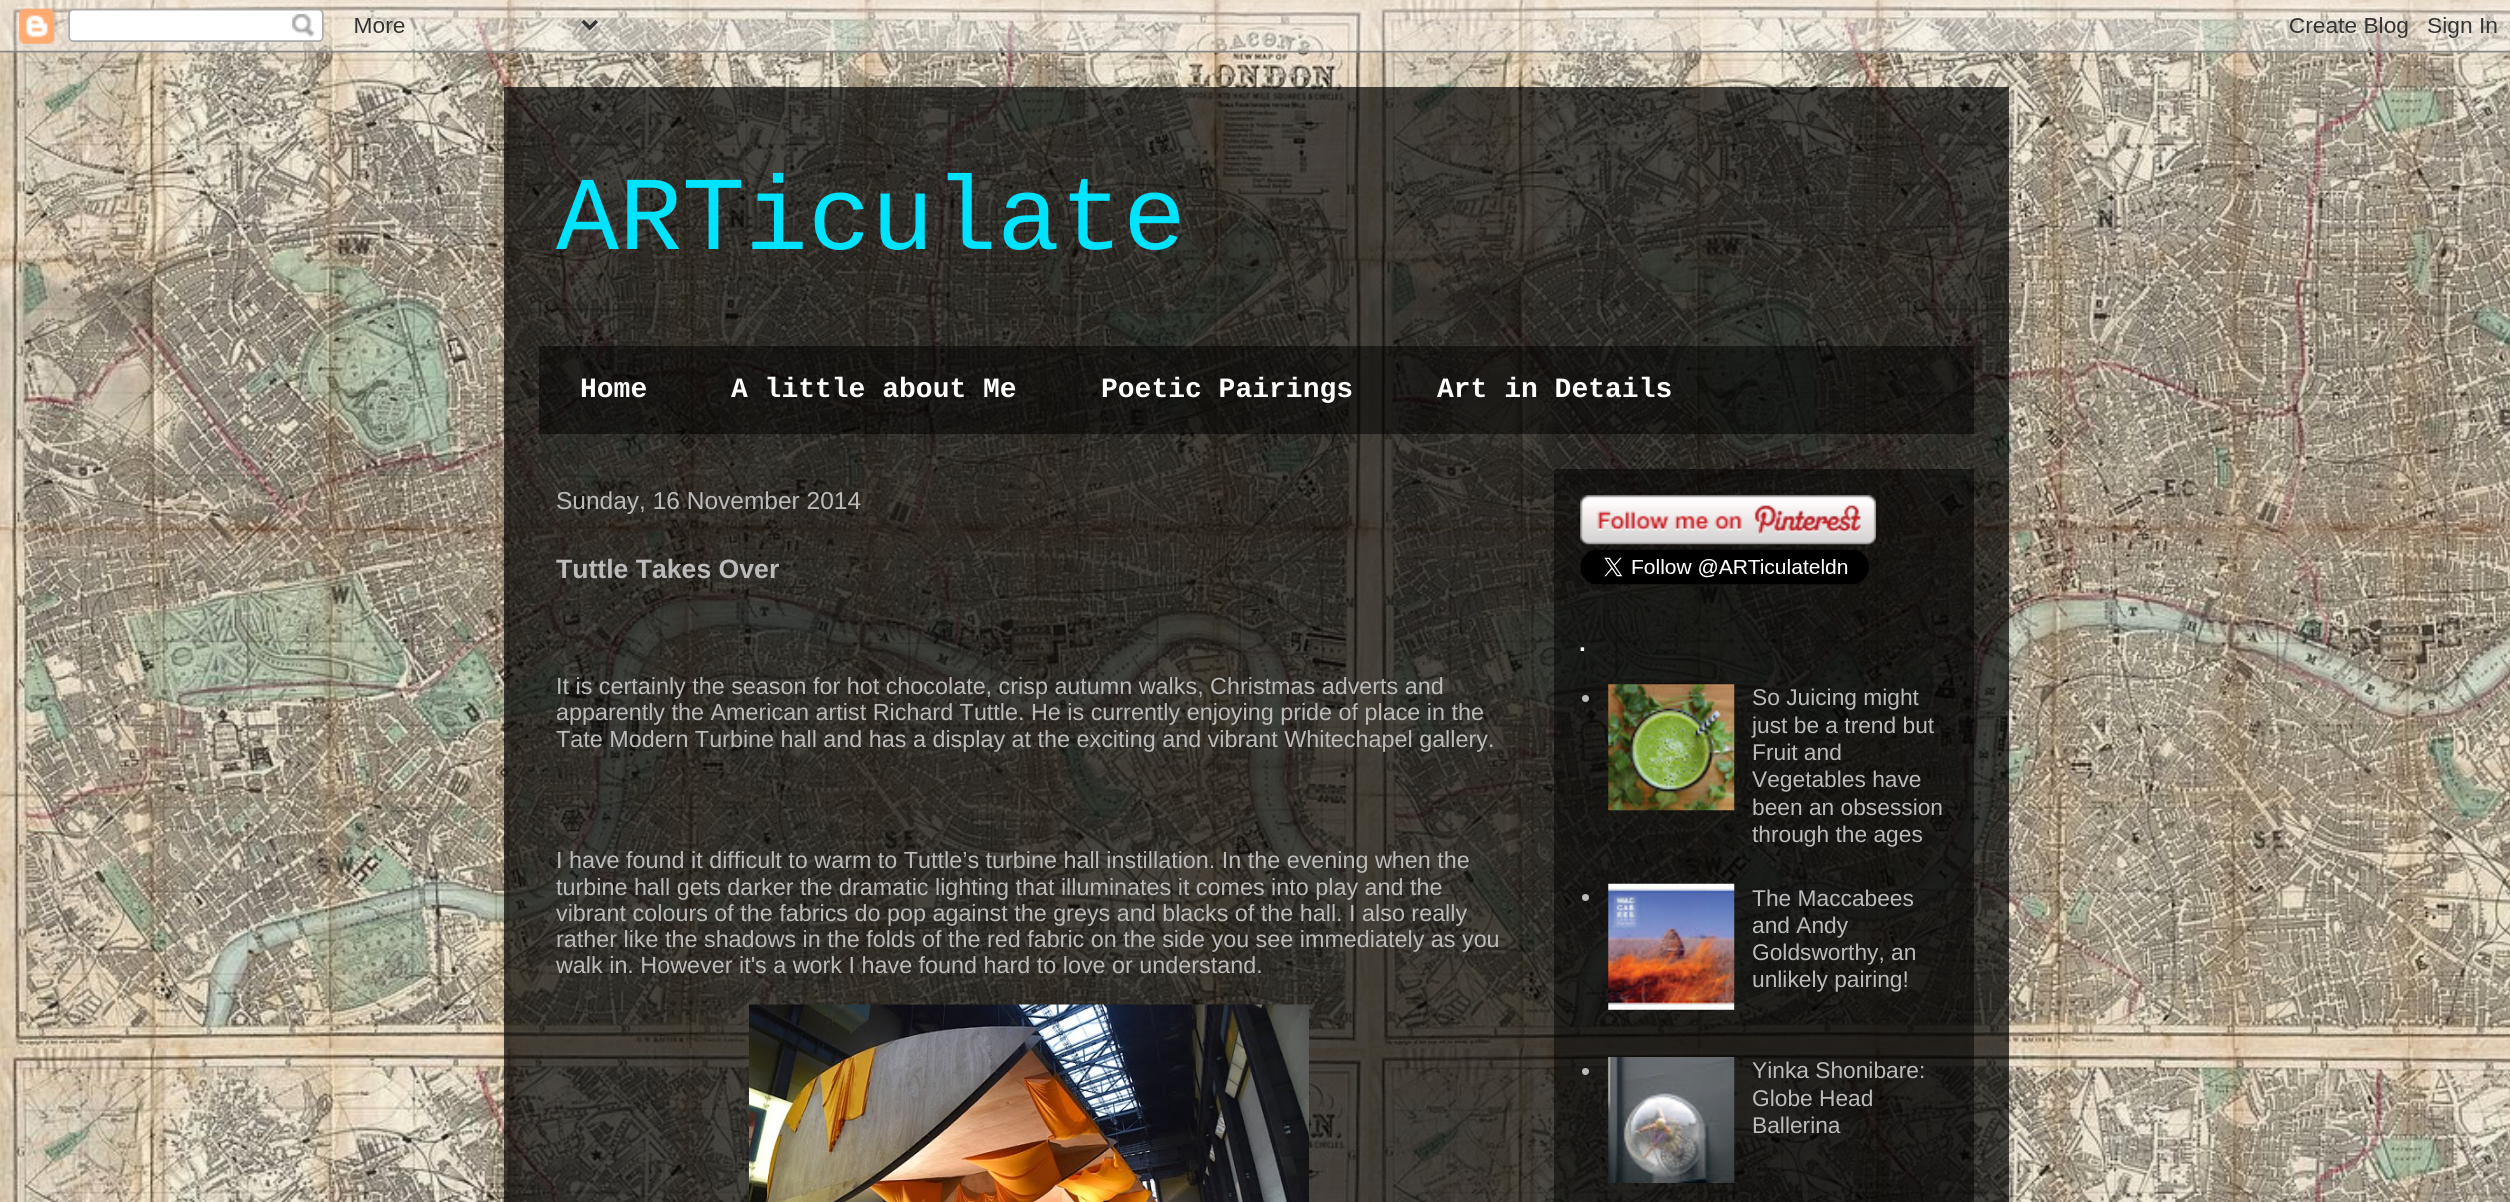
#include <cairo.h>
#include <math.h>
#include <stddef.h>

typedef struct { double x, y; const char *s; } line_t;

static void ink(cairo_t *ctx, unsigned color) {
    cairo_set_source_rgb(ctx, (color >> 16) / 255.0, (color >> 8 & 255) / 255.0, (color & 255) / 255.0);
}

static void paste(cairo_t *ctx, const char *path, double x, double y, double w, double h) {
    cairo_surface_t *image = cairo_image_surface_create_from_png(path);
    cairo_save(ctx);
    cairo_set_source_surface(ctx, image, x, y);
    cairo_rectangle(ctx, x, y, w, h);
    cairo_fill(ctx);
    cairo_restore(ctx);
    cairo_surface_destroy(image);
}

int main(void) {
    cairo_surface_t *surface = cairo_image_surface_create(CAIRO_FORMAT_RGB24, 2510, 1202);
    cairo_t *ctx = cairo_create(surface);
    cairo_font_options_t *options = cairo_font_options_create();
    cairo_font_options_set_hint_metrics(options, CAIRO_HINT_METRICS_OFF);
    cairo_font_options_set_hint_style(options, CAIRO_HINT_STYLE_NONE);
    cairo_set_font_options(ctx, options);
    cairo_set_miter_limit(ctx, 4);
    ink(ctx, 0xFFFFFF);
    cairo_paint(ctx);
    paste(ctx, "media/1.png", 0, 0, 2510, 1202);
    paste(ctx, "media/2.png", 0, 0, 2510, 53);
    cairo_set_source_rgba(ctx, 0, 0, 0, 0.7);
    cairo_rectangle(ctx, 504, 87, 1505, 1115);
    cairo_fill(ctx);
    cairo_select_font_face(ctx, "Liberation Mono", CAIRO_FONT_SLANT_NORMAL, CAIRO_FONT_WEIGHT_NORMAL);
    cairo_set_font_size(ctx, 105);
    ink(ctx, 0x00E3FF);
    cairo_move_to(ctx, 556, 249);
    cairo_show_text(ctx, "ARTiculate");
    cairo_set_source_rgba(ctx, 0, 0, 0, 0.5);
    cairo_rectangle(ctx, 539, 346, 1435, 88);
    cairo_fill(ctx);
    cairo_select_font_face(ctx, "Liberation Mono", CAIRO_FONT_SLANT_NORMAL, CAIRO_FONT_WEIGHT_BOLD);
    cairo_set_font_size(ctx, 28);
    ink(ctx, 0xFFFFFF);
    {
        static const line_t items[] = {
            {580, 397, "Home"},
            {731, 397, "A little about Me"},
            {1101, 397, "Poetic Pairings"},
            {1437, 397, "Art in Details"},
        };
        for (size_t i = 0; i < sizeof items / sizeof *items; i++) {
            cairo_move_to(ctx, items[i].x, items[i].y);
            cairo_show_text(ctx, items[i].s);
        }
    }
    cairo_set_source_rgba(ctx, 0, 0, 0, 0.5);
    cairo_rectangle(ctx, 1554, 469, 420, 733);
    cairo_fill(ctx);
    cairo_select_font_face(ctx, "Liberation Sans", CAIRO_FONT_SLANT_NORMAL, CAIRO_FONT_WEIGHT_NORMAL);
    cairo_set_font_size(ctx, 24.5);
    ink(ctx, 0xBBBBBB);
    cairo_move_to(ctx, 556, 509);
    cairo_show_text(ctx, "Sunday, 16 November 2014");
    cairo_select_font_face(ctx, "Liberation Sans", CAIRO_FONT_SLANT_NORMAL, CAIRO_FONT_WEIGHT_BOLD);
    cairo_set_font_size(ctx, 26.6);
    cairo_move_to(ctx, 556, 578);
    cairo_show_text(ctx, "Tuttle Takes Over");
    cairo_select_font_face(ctx, "Liberation Sans", CAIRO_FONT_SLANT_NORMAL, CAIRO_FONT_WEIGHT_NORMAL);
    cairo_set_font_size(ctx, 23.35);
    {
        static const line_t items[] = {
            {556, 694, "It is certainly the season for hot chocolate, crisp autumn walks, Christmas adverts and"},
            {556, 720, "apparently the American artist Richard Tuttle. He is currently enjoying pride of place in the"},
            {556, 747, "Tate Modern Turbine hall and has a display at the exciting and vibrant Whitechapel gallery."},
            {556, 868, "I have found it difficult to warm to Tuttle’s turbine hall instillation. In the evening when the"},
            {556, 895, "turbine hall gets darker the dramatic lighting that illuminates it comes into play and the"},
            {556, 921, "vibrant colours of the fabrics do pop against the greys and blacks of the hall. I also really"},
            {556, 947, "rather like the shadows in the folds of the red fabric on the side you see immediately as you"},
            {556, 973, "walk in. However it's a work I have found hard to love or understand."},
        };
        for (size_t i = 0; i < sizeof items / sizeof *items; i++) {
            cairo_move_to(ctx, items[i].x, items[i].y);
            cairo_show_text(ctx, items[i].s);
        }
    }
    paste(ctx, "media/3.png", 749, 1004, 560, 198);
    paste(ctx, "media/4.png", 1580, 495, 296, 50);
    paste(ctx, "media/5.png", 1580, 549, 289, 36);
    cairo_select_font_face(ctx, "Liberation Sans", CAIRO_FONT_SLANT_NORMAL, CAIRO_FONT_WEIGHT_BOLD);
    cairo_set_font_size(ctx, 24.5);
    ink(ctx, 0xFFFFFF);
    cairo_move_to(ctx, 1579, 651);
    cairo_show_text(ctx, ".");
    ink(ctx, 0xBBBBBB);
    cairo_new_path(ctx);
    cairo_arc(ctx, 1585.5, 698.5, 3.5, 0, 2 * M_PI);
    cairo_fill(ctx);
    paste(ctx, "media/6.png", 1608, 684, 127, 127);
    cairo_select_font_face(ctx, "Liberation Sans", CAIRO_FONT_SLANT_NORMAL, CAIRO_FONT_WEIGHT_NORMAL);
    cairo_set_font_size(ctx, 22.75);
    {
        static const line_t items[] = {
            {1752, 705, "So Juicing might"},
            {1752, 733, "just be a trend but"},
            {1752, 760, "Fruit and"},
            {1752, 787, "Vegetables have"},
            {1752, 815, "been an obsession"},
            {1752, 842, "through the ages"},
        };
        for (size_t i = 0; i < sizeof items / sizeof *items; i++) {
            cairo_move_to(ctx, items[i].x, items[i].y);
            cairo_show_text(ctx, items[i].s);
        }
    }
    cairo_new_path(ctx);
    cairo_arc(ctx, 1585.5, 897.5, 3.5, 0, 2 * M_PI);
    cairo_fill(ctx);
    paste(ctx, "media/7.png", 1608, 883, 127, 127);
    {
        static const line_t items[] = {
            {1752, 906, "The Maccabees"},
            {1752, 933, "and Andy"},
            {1752, 960, "Goldsworthy, an"},
            {1752, 987, "unlikely pairing!"},
        };
        for (size_t i = 0; i < sizeof items / sizeof *items; i++) {
            cairo_move_to(ctx, items[i].x, items[i].y);
            cairo_show_text(ctx, items[i].s);
        }
    }
    cairo_new_path(ctx);
    cairo_arc(ctx, 1585.5, 1071.5, 3.5, 0, 2 * M_PI);
    cairo_fill(ctx);
    paste(ctx, "media/8.png", 1608, 1057, 127, 126);
    {
        static const line_t items[] = {
            {1752, 1078, "Yinka Shonibare:"},
            {1752, 1106, "Globe Head"},
            {1752, 1133, "Ballerina"},
        };
        for (size_t i = 0; i < sizeof items / sizeof *items; i++) {
            cairo_move_to(ctx, items[i].x, items[i].y);
            cairo_show_text(ctx, items[i].s);
        }
    }
    cairo_surface_write_to_png(surface, "image.png");
    cairo_font_options_destroy(options);
    cairo_destroy(ctx);
    cairo_surface_destroy(surface);
    return 0;
}
